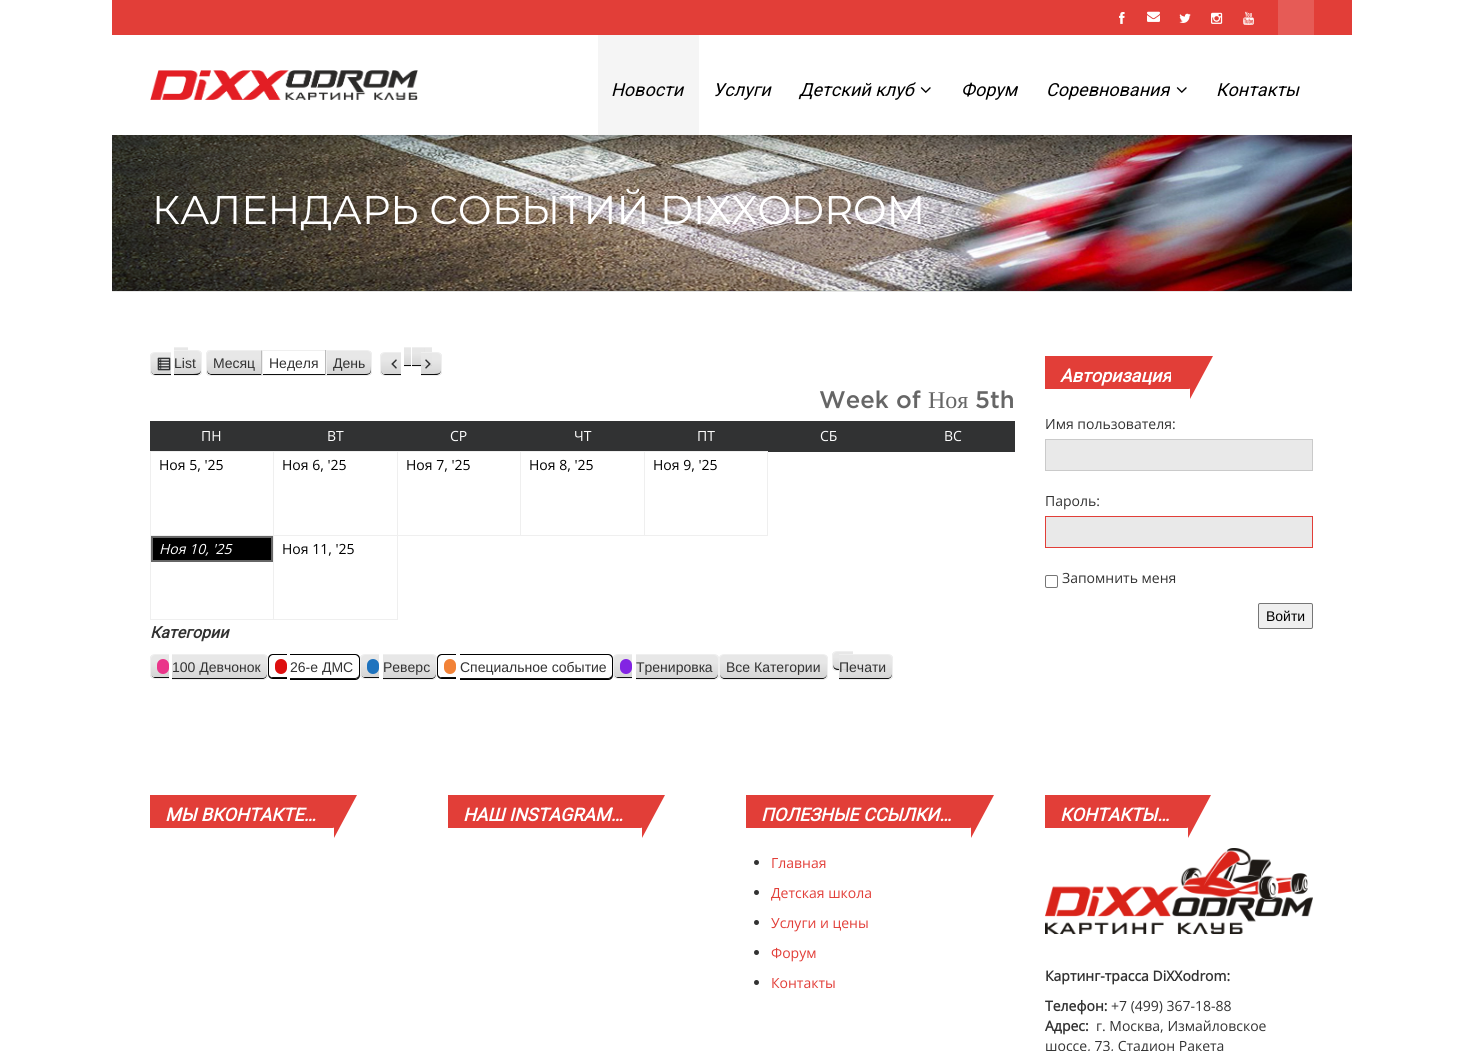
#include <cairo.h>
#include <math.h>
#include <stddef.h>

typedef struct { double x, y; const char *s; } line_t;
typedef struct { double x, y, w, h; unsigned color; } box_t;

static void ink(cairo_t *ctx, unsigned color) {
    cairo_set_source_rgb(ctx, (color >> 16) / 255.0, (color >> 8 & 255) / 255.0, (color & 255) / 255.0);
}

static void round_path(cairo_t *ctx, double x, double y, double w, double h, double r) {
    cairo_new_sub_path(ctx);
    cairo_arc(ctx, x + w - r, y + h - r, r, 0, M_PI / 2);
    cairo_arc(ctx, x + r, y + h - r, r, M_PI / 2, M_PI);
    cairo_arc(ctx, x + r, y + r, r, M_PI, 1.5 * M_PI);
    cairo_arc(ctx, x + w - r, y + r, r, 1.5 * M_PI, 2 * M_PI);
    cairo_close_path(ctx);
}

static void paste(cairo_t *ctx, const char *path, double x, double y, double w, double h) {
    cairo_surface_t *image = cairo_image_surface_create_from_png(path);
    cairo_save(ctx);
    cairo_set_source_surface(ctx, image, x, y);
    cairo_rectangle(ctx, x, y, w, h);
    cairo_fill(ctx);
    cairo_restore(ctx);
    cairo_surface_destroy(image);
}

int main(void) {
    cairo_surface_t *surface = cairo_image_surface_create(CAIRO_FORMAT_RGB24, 1463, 1051);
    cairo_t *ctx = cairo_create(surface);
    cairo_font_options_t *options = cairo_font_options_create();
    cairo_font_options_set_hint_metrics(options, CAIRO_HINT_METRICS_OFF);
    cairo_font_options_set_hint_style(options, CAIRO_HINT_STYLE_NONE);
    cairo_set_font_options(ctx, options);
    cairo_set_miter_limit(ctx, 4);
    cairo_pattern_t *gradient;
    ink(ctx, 0xFFFFFF);
    cairo_paint(ctx);
    ink(ctx, 0xE23E38);
    cairo_rectangle(ctx, 112, 0, 1240, 35);
    cairo_fill(ctx);
    paste(ctx, "media/1.png", 1119, 12, 6, 12);
    paste(ctx, "media/2.png", 1147, 11, 13, 11);
    paste(ctx, "media/3.png", 1179, 13, 12, 10);
    paste(ctx, "media/4.png", 1211, 12, 12, 12);
    paste(ctx, "media/5.png", 1243, 11, 11, 14);
    cairo_set_source_rgba(ctx, 1, 1, 1, 0.15);
    cairo_rectangle(ctx, 1278, 0, 36, 35);
    cairo_fill(ctx);
    paste(ctx, "media/6.png", 150, 70, 268, 30);
    ink(ctx, 0xF5F5F5);
    cairo_rectangle(ctx, 598, 35, 101, 100);
    cairo_fill(ctx);
    cairo_select_font_face(ctx, "Roboto", CAIRO_FONT_SLANT_ITALIC, CAIRO_FONT_WEIGHT_NORMAL);
    cairo_set_font_size(ctx, 18);
    ink(ctx, 0x000000);
    {
        static const line_t items[] = {
            {611, 96, "Новости"},
            {713, 96, "Услуги"},
            {799, 96, "Детский клуб"},
        };
        for (size_t i = 0; i < sizeof items / sizeof *items; i++) {
            cairo_move_to(ctx, items[i].x, items[i].y);
            cairo_show_text(ctx, items[i].s);
        }
    }
    paste(ctx, "media/7.png", 920, 87, 11, 6);
    cairo_move_to(ctx, 961, 96);
    cairo_show_text(ctx, "Форум");
    cairo_move_to(ctx, 1046, 96);
    cairo_show_text(ctx, "Соревнования");
    paste(ctx, "media/7.png", 1176, 87, 11, 6);
    cairo_move_to(ctx, 1216, 96);
    cairo_show_text(ctx, "Контакты");
    paste(ctx, "media/9.png", 112, 135, 1240, 156);
    paste(ctx, "media/8.png", 201, 135, 1069, 19);
    ink(ctx, 0xE9E9E9);
    cairo_rectangle(ctx, 112, 291, 1240, 1);
    cairo_fill(ctx);
    cairo_select_font_face(ctx, "Montserrat", CAIRO_FONT_SLANT_NORMAL, CAIRO_FONT_WEIGHT_NORMAL);
    cairo_set_font_size(ctx, 40);
    ink(ctx, 0xFFFFFF);
    cairo_move_to(ctx, 152, 224);
    cairo_show_text(ctx, "КАЛЕНДАРЬ СОБЫТИЙ DIXXODROM");
    cairo_save(ctx);
    cairo_new_path(ctx);
    cairo_move_to(ctx, 155, 352);
    cairo_line_to(ctx, 171, 352);
    cairo_line_to(ctx, 171, 376);
    cairo_line_to(ctx, 155, 376);
    cairo_curve_to(ctx, 152, 376, 150, 374, 150, 371);
    cairo_line_to(ctx, 150, 357);
    cairo_curve_to(ctx, 150, 354, 152, 352, 155, 352);
    cairo_close_path(ctx);
    cairo_clip(ctx);
    gradient = cairo_pattern_create_linear(161, 375, 161, 353);
    cairo_pattern_add_color_stop_rgba(gradient, 0, 0.831, 0.831, 0.831, 1);
    cairo_pattern_add_color_stop_rgba(gradient, 0.7, 0.906, 0.906, 0.906, 1);
    cairo_set_source(ctx, gradient);
    cairo_pattern_destroy(gradient);
    cairo_rectangle(ctx, 150, 353, 21, 22);
    cairo_fill(ctx);
    cairo_restore(ctx);
    ink(ctx, 0x0F0F0F);
    cairo_set_fill_rule(ctx, CAIRO_FILL_RULE_EVEN_ODD);
    cairo_new_path(ctx);
    cairo_move_to(ctx, 151.5, 355.5);
    cairo_line_to(ctx, 151, 357.5);
    cairo_close_path(ctx);
    cairo_move_to(ctx, 151, 370);
    cairo_curve_to(ctx, 151, 376, 156, 375, 160.5, 375);
    cairo_line_to(ctx, 171, 375);
    cairo_line_to(ctx, 171, 374);
    cairo_line_to(ctx, 153, 374);
    cairo_curve_to(ctx, 152, 373, 151, 372, 151, 370);
    cairo_close_path(ctx);
    cairo_fill(ctx);
    ink(ctx, 0xEFEFEF);
    cairo_new_path(ctx);
    cairo_move_to(ctx, 155, 352);
    cairo_line_to(ctx, 171, 352);
    cairo_line_to(ctx, 171, 376);
    cairo_line_to(ctx, 155, 376);
    cairo_curve_to(ctx, 152, 376, 150, 374, 150, 371);
    cairo_line_to(ctx, 150, 357);
    cairo_curve_to(ctx, 150, 354, 152, 352, 155, 352);
    cairo_close_path(ctx);
    cairo_move_to(ctx, 155, 353);
    cairo_line_to(ctx, 171, 353);
    cairo_line_to(ctx, 171, 375);
    cairo_line_to(ctx, 155, 375);
    cairo_curve_to(ctx, 153, 375, 151, 373, 151, 371);
    cairo_line_to(ctx, 151, 357);
    cairo_curve_to(ctx, 151, 355, 153, 353, 155, 353);
    cairo_close_path(ctx);
    cairo_fill(ctx);
    paste(ctx, "media/10.png", 157, 357, 14, 14);
    gradient = cairo_pattern_create_linear(181, 366, 181, 348);
    cairo_pattern_add_color_stop_rgba(gradient, 0, 0.831, 0.831, 0.831, 1);
    cairo_pattern_add_color_stop_rgba(gradient, 0.7, 0.906, 0.906, 0.906, 1);
    cairo_set_source(ctx, gradient);
    cairo_pattern_destroy(gradient);
    cairo_rectangle(ctx, 174, 348, 14, 17);
    cairo_fill(ctx);
    ink(ctx, 0x0F0F0F);
    cairo_rectangle(ctx, 174, 365, 14, 1);
    cairo_fill(ctx);
    ink(ctx, 0xEFEFEF);
    cairo_rectangle(ctx, 174, 366, 14, 1);
    cairo_fill(ctx);
    cairo_save(ctx);
    cairo_set_fill_rule(ctx, CAIRO_FILL_RULE_WINDING);
    cairo_new_path(ctx);
    cairo_move_to(ctx, 174, 350);
    cairo_line_to(ctx, 197, 350);
    cairo_curve_to(ctx, 200, 350, 202, 352, 202, 355);
    cairo_line_to(ctx, 202, 371);
    cairo_curve_to(ctx, 202, 374, 200, 376, 197, 376);
    cairo_line_to(ctx, 174, 376);
    cairo_close_path(ctx);
    cairo_clip(ctx);
    gradient = cairo_pattern_create_linear(188, 375, 188, 351);
    cairo_pattern_add_color_stop_rgba(gradient, 0, 0.824, 0.824, 0.824, 0.95);
    cairo_pattern_add_color_stop_rgba(gradient, 0.7, 0.902, 0.902, 0.902, 0.95);
    cairo_set_source(ctx, gradient);
    cairo_pattern_destroy(gradient);
    cairo_rectangle(ctx, 174, 351, 28, 24);
    cairo_fill(ctx);
    cairo_restore(ctx);
    ink(ctx, 0x0F0F0F);
    cairo_set_fill_rule(ctx, CAIRO_FILL_RULE_WINDING);
    cairo_new_path(ctx);
    cairo_move_to(ctx, 174, 374);
    cairo_line_to(ctx, 174, 375);
    cairo_line_to(ctx, 189.5, 375);
    cairo_curve_to(ctx, 193.5, 375, 201, 377, 201, 370.5);
    cairo_curve_to(ctx, 200.5, 373, 198.5, 374, 193, 374);
    cairo_close_path(ctx);
    cairo_fill(ctx);
    ink(ctx, 0xEFEFEF);
    cairo_set_fill_rule(ctx, CAIRO_FILL_RULE_EVEN_ODD);
    cairo_new_path(ctx);
    cairo_move_to(ctx, 174, 350);
    cairo_line_to(ctx, 197, 350);
    cairo_curve_to(ctx, 200, 350, 202, 352, 202, 355);
    cairo_line_to(ctx, 202, 371);
    cairo_curve_to(ctx, 202, 374, 200, 376, 197, 376);
    cairo_line_to(ctx, 174, 376);
    cairo_close_path(ctx);
    cairo_move_to(ctx, 174, 351);
    cairo_line_to(ctx, 197, 351);
    cairo_curve_to(ctx, 199, 351, 201, 353, 201, 355);
    cairo_line_to(ctx, 201, 371);
    cairo_curve_to(ctx, 201, 373, 199, 375, 197, 375);
    cairo_line_to(ctx, 174, 375);
    cairo_close_path(ctx);
    cairo_fill(ctx);
    cairo_select_font_face(ctx, "Liberation Sans", CAIRO_FONT_SLANT_NORMAL, CAIRO_FONT_WEIGHT_NORMAL);
    cairo_set_font_size(ctx, 14);
    ink(ctx, 0x323232);
    cairo_move_to(ctx, 174, 368);
    cairo_show_text(ctx, "List");
    ink(ctx, 0xEFEFEF);
    cairo_rectangle(ctx, 174, 347, 14, 1);
    cairo_fill(ctx);
    cairo_save(ctx);
    cairo_set_fill_rule(ctx, CAIRO_FILL_RULE_WINDING);
    cairo_new_path(ctx);
    cairo_move_to(ctx, 211, 350);
    cairo_line_to(ctx, 262, 350);
    cairo_line_to(ctx, 262, 376);
    cairo_line_to(ctx, 211, 376);
    cairo_curve_to(ctx, 208, 376, 206, 374, 206, 371);
    cairo_line_to(ctx, 206, 355);
    cairo_curve_to(ctx, 206, 352, 208, 350, 211, 350);
    cairo_close_path(ctx);
    cairo_clip(ctx);
    gradient = cairo_pattern_create_linear(234, 375, 234, 351);
    cairo_pattern_add_color_stop_rgba(gradient, 0, 0.831, 0.831, 0.831, 1);
    cairo_pattern_add_color_stop_rgba(gradient, 0.7, 0.906, 0.906, 0.906, 1);
    cairo_set_source(ctx, gradient);
    cairo_pattern_destroy(gradient);
    cairo_rectangle(ctx, 206, 351, 55, 24);
    cairo_fill(ctx);
    cairo_restore(ctx);
    ink(ctx, 0x0F0F0F);
    cairo_set_fill_rule(ctx, CAIRO_FILL_RULE_WINDING);
    cairo_new_path(ctx);
    cairo_move_to(ctx, 207, 370);
    cairo_line_to(ctx, 207, 371);
    cairo_curve_to(ctx, 207, 373, 209, 375, 211, 375);
    cairo_line_to(ctx, 261, 375);
    cairo_line_to(ctx, 261, 374);
    cairo_line_to(ctx, 211, 374);
    cairo_curve_to(ctx, 209, 374, 207, 372, 207, 370);
    cairo_close_path(ctx);
    cairo_fill(ctx);
    ink(ctx, 0x323232);
    cairo_move_to(ctx, 213, 368);
    cairo_show_text(ctx, "Месяц");
    ink(ctx, 0xEFEFEF);
    cairo_new_path(ctx);
    cairo_move_to(ctx, 211, 350);
    cairo_curve_to(ctx, 210, 350, 208, 350, 207, 351);
    cairo_line_to(ctx, 208, 352);
    cairo_line_to(ctx, 211, 351);
    cairo_line_to(ctx, 261, 351);
    cairo_line_to(ctx, 262, 350);
    cairo_close_path(ctx);
    cairo_fill(ctx);
    ink(ctx, 0xBBBBBB);
    cairo_new_path(ctx);
    cairo_move_to(ctx, 262, 350);
    cairo_line_to(ctx, 261, 351);
    cairo_line_to(ctx, 261, 375);
    cairo_line_to(ctx, 262, 376);
    cairo_close_path(ctx);
    cairo_fill(ctx);
    ink(ctx, 0xEFEFEF);
    cairo_new_path(ctx);
    cairo_move_to(ctx, 262, 376);
    cairo_line_to(ctx, 261, 375);
    cairo_line_to(ctx, 211, 375);
    cairo_line_to(ctx, 208, 374);
    cairo_line_to(ctx, 207, 375);
    cairo_curve_to(ctx, 208, 376, 210, 376, 211, 376);
    cairo_close_path(ctx);
    cairo_fill(ctx);
    cairo_new_path(ctx);
    cairo_move_to(ctx, 206, 355);
    cairo_line_to(ctx, 206, 371);
    cairo_curve_to(ctx, 206, 372.5, 206.5, 374, 207.5, 374.5);
    cairo_line_to(ctx, 208, 374);
    cairo_curve_to(ctx, 207.5, 373, 207, 372, 207, 371);
    cairo_line_to(ctx, 207, 355);
    cairo_curve_to(ctx, 207, 354, 207.5, 353, 208, 352);
    cairo_line_to(ctx, 207.5, 351.5);
    cairo_curve_to(ctx, 206.5, 352, 206, 353.5, 206, 355);
    cairo_close_path(ctx);
    cairo_fill(ctx);
    ink(ctx, 0x323232);
    cairo_move_to(ctx, 269, 368);
    cairo_show_text(ctx, "Неделя");
    {
        static const box_t items[] = {
            {263, 374, 62, 1, 0x0F0F0F},
            {262, 350, 64, 1, 0xEFEFEF},
            {325, 350, 1, 26, 0xBBBBBB},
            {262, 375, 64, 1, 0xEFEFEF},
            {262, 350, 1, 26, 0xEFEFEF},
        };
        for (size_t i = 0; i < sizeof items / sizeof *items; i++) {
            ink(ctx, items[i].color);
            cairo_rectangle(ctx, items[i].x, items[i].y, items[i].w, items[i].h);
            cairo_fill(ctx);
        }
    }
    cairo_save(ctx);
    cairo_new_path(ctx);
    cairo_move_to(ctx, 326, 350);
    cairo_line_to(ctx, 367, 350);
    cairo_curve_to(ctx, 370, 350, 372, 352, 372, 355);
    cairo_line_to(ctx, 372, 371);
    cairo_curve_to(ctx, 372, 374, 370, 376, 367, 376);
    cairo_line_to(ctx, 326, 376);
    cairo_close_path(ctx);
    cairo_clip(ctx);
    gradient = cairo_pattern_create_linear(349, 375, 349, 351);
    cairo_pattern_add_color_stop_rgba(gradient, 0, 0.831, 0.831, 0.831, 1);
    cairo_pattern_add_color_stop_rgba(gradient, 0.7, 0.906, 0.906, 0.906, 1);
    cairo_set_source(ctx, gradient);
    cairo_pattern_destroy(gradient);
    cairo_rectangle(ctx, 327, 351, 45, 24);
    cairo_fill(ctx);
    cairo_restore(ctx);
    ink(ctx, 0x0F0F0F);
    cairo_new_path(ctx);
    cairo_move_to(ctx, 327, 374);
    cairo_line_to(ctx, 327, 375);
    cairo_line_to(ctx, 360, 375);
    cairo_curve_to(ctx, 363, 375, 370, 376, 371, 372);
    cairo_line_to(ctx, 371, 353);
    cairo_line_to(ctx, 371, 366);
    cairo_curve_to(ctx, 371, 372, 371, 374, 365, 374);
    cairo_close_path(ctx);
    cairo_fill(ctx);
    cairo_new_path(ctx);
    cairo_move_to(ctx, 326.5, 350.5);
    cairo_line_to(ctx, 367, 350.5);
    cairo_curve_to(ctx, 369.5, 350.5, 371.5, 352.5, 371.5, 355);
    cairo_line_to(ctx, 371.5, 371);
    cairo_curve_to(ctx, 371.5, 373.5, 369.5, 375.5, 367, 375.5);
    cairo_line_to(ctx, 326.5, 375.5);
    cairo_close_path(ctx);
    ink(ctx, 0xEFEFEF);
    cairo_set_line_width(ctx, 1);
    cairo_stroke(ctx);
    ink(ctx, 0x323232);
    cairo_move_to(ctx, 333, 368);
    cairo_show_text(ctx, "День");
    ink(ctx, 0xEFEFEF);
    cairo_rectangle(ctx, 404, 347, 7, 1);
    cairo_fill(ctx);
    ink(ctx, 0xBBBBBB);
    cairo_rectangle(ctx, 424, 347, 1, 20);
    cairo_fill(ctx);
    cairo_save(ctx);
    cairo_new_path(ctx);
    cairo_move_to(ctx, 385, 352);
    cairo_line_to(ctx, 401, 352);
    cairo_line_to(ctx, 401, 376);
    cairo_line_to(ctx, 385, 376);
    cairo_curve_to(ctx, 382, 376, 380, 374, 380, 371);
    cairo_line_to(ctx, 380, 357);
    cairo_curve_to(ctx, 380, 354, 382, 352, 385, 352);
    cairo_close_path(ctx);
    cairo_clip(ctx);
    gradient = cairo_pattern_create_linear(391, 375, 391, 353);
    cairo_pattern_add_color_stop_rgba(gradient, 0, 0.831, 0.831, 0.831, 1);
    cairo_pattern_add_color_stop_rgba(gradient, 0.7, 0.906, 0.906, 0.906, 1);
    cairo_set_source(ctx, gradient);
    cairo_pattern_destroy(gradient);
    cairo_rectangle(ctx, 380, 353, 21, 22);
    cairo_fill(ctx);
    cairo_restore(ctx);
    ink(ctx, 0x0F0F0F);
    cairo_set_fill_rule(ctx, CAIRO_FILL_RULE_EVEN_ODD);
    cairo_new_path(ctx);
    cairo_move_to(ctx, 381.5, 355.5);
    cairo_line_to(ctx, 381, 357.5);
    cairo_close_path(ctx);
    cairo_move_to(ctx, 381, 370);
    cairo_curve_to(ctx, 381, 376, 386, 375, 390.5, 375);
    cairo_line_to(ctx, 401, 375);
    cairo_line_to(ctx, 401, 374);
    cairo_line_to(ctx, 383, 374);
    cairo_curve_to(ctx, 382, 373, 381, 372, 381, 370);
    cairo_close_path(ctx);
    cairo_fill(ctx);
    ink(ctx, 0xEFEFEF);
    cairo_new_path(ctx);
    cairo_move_to(ctx, 385, 352);
    cairo_line_to(ctx, 401, 352);
    cairo_line_to(ctx, 401, 376);
    cairo_line_to(ctx, 385, 376);
    cairo_curve_to(ctx, 382, 376, 380, 374, 380, 371);
    cairo_line_to(ctx, 380, 357);
    cairo_curve_to(ctx, 380, 354, 382, 352, 385, 352);
    cairo_close_path(ctx);
    cairo_move_to(ctx, 385, 353);
    cairo_line_to(ctx, 401, 353);
    cairo_line_to(ctx, 401, 375);
    cairo_line_to(ctx, 385, 375);
    cairo_curve_to(ctx, 383, 375, 381, 373, 381, 371);
    cairo_line_to(ctx, 381, 357);
    cairo_curve_to(ctx, 381, 355, 383, 353, 385, 353);
    cairo_close_path(ctx);
    cairo_fill(ctx);
    gradient = cairo_pattern_create_linear(414, 366, 414, 348);
    cairo_pattern_add_color_stop_rgba(gradient, 0, 0.831, 0.831, 0.831, 1);
    cairo_pattern_add_color_stop_rgba(gradient, 0.7, 0.906, 0.906, 0.906, 1);
    cairo_set_source(ctx, gradient);
    cairo_pattern_destroy(gradient);
    cairo_rectangle(ctx, 404, 348, 20, 17);
    cairo_fill(ctx);
    paste(ctx, "media/11.png", 391, 359, 6, 10);
    {
        static const box_t items[] = {
            {404, 365, 7, 1, 0x0F0F0F},
            {404, 366, 28, 1, 0xEFEFEF},
            {411, 347, 21, 1, 0xEFEFEF},
            {411, 347, 1, 20, 0xFFFFFF},
        };
        for (size_t i = 0; i < sizeof items / sizeof *items; i++) {
            ink(ctx, items[i].color);
            cairo_rectangle(ctx, items[i].x, items[i].y, items[i].w, items[i].h);
            cairo_fill(ctx);
        }
    }
    gradient = cairo_pattern_create_linear(422, 366, 422, 348);
    cairo_pattern_add_color_stop_rgba(gradient, 0, 0.824, 0.824, 0.824, 0.95);
    cairo_pattern_add_color_stop_rgba(gradient, 0.7, 0.902, 0.902, 0.902, 0.95);
    cairo_set_source(ctx, gradient);
    cairo_pattern_destroy(gradient);
    cairo_rectangle(ctx, 424, 348, 8, 17);
    cairo_fill(ctx);
    ink(ctx, 0x0F0F0F);
    cairo_rectangle(ctx, 412, 365, 20, 1);
    cairo_fill(ctx);
    cairo_save(ctx);
    cairo_set_fill_rule(ctx, CAIRO_FILL_RULE_WINDING);
    cairo_new_path(ctx);
    cairo_move_to(ctx, 421, 352);
    cairo_line_to(ctx, 437, 352);
    cairo_curve_to(ctx, 440, 352, 442, 354, 442, 357);
    cairo_line_to(ctx, 442, 371);
    cairo_curve_to(ctx, 442, 374, 440, 376, 437, 376);
    cairo_line_to(ctx, 421, 376);
    cairo_close_path(ctx);
    cairo_clip(ctx);
    gradient = cairo_pattern_create_linear(431, 375, 431, 353);
    cairo_pattern_add_color_stop_rgba(gradient, 0, 0.824, 0.824, 0.824, 0.95);
    cairo_pattern_add_color_stop_rgba(gradient, 0.7, 0.902, 0.902, 0.902, 0.95);
    cairo_set_source(ctx, gradient);
    cairo_pattern_destroy(gradient);
    cairo_rectangle(ctx, 421, 353, 21, 22);
    cairo_fill(ctx);
    cairo_restore(ctx);
    cairo_set_fill_rule(ctx, CAIRO_FILL_RULE_WINDING);
    cairo_new_path(ctx);
    cairo_move_to(ctx, 421, 374);
    cairo_line_to(ctx, 421, 375);
    cairo_line_to(ctx, 431.5, 375);
    cairo_curve_to(ctx, 435.5, 375, 441, 376, 441, 370.5);
    cairo_curve_to(ctx, 440.5, 373, 439, 374, 434, 374);
    cairo_close_path(ctx);
    cairo_fill(ctx);
    ink(ctx, 0xEFEFEF);
    cairo_set_fill_rule(ctx, CAIRO_FILL_RULE_EVEN_ODD);
    cairo_new_path(ctx);
    cairo_move_to(ctx, 421, 352);
    cairo_line_to(ctx, 437, 352);
    cairo_curve_to(ctx, 440, 352, 442, 354, 442, 357);
    cairo_line_to(ctx, 442, 371);
    cairo_curve_to(ctx, 442, 374, 440, 376, 437, 376);
    cairo_line_to(ctx, 421, 376);
    cairo_close_path(ctx);
    cairo_move_to(ctx, 421, 353);
    cairo_line_to(ctx, 437, 353);
    cairo_curve_to(ctx, 439, 353, 441, 355, 441, 357);
    cairo_line_to(ctx, 441, 371);
    cairo_curve_to(ctx, 441, 373, 439, 375, 437, 375);
    cairo_line_to(ctx, 421, 375);
    cairo_close_path(ctx);
    cairo_fill(ctx);
    paste(ctx, "media/12.png", 425, 359, 6, 10);
    cairo_select_font_face(ctx, "Gotham Medium", CAIRO_FONT_SLANT_NORMAL, CAIRO_FONT_WEIGHT_NORMAL);
    cairo_set_font_size(ctx, 24);
    ink(ctx, 0x666666);
    cairo_move_to(ctx, 819, 408);
    cairo_show_text(ctx, "Week of");
    cairo_select_font_face(ctx, "Liberation Serif", CAIRO_FONT_SLANT_NORMAL, CAIRO_FONT_WEIGHT_NORMAL);
    cairo_move_to(ctx, 928, 408);
    cairo_show_text(ctx, "Ноя");
    cairo_select_font_face(ctx, "Gotham Medium", CAIRO_FONT_SLANT_NORMAL, CAIRO_FONT_WEIGHT_NORMAL);
    cairo_move_to(ctx, 975, 408);
    cairo_show_text(ctx, "5th");
    ink(ctx, 0x313233);
    cairo_rectangle(ctx, 150, 421, 618, 30);
    cairo_fill(ctx);
    cairo_select_font_face(ctx, "Open Sans", CAIRO_FONT_SLANT_NORMAL, CAIRO_FONT_WEIGHT_NORMAL);
    cairo_set_font_size(ctx, 14);
    ink(ctx, 0xFFFFFF);
    {
        static const line_t items[] = {
            {201, 441, "ПН"},
            {327, 441, "ВТ"},
            {450, 441, "СР"},
            {574, 441, "ЧТ"},
            {697, 441, "ПТ"},
        };
        for (size_t i = 0; i < sizeof items / sizeof *items; i++) {
            cairo_move_to(ctx, items[i].x, items[i].y);
            cairo_show_text(ctx, items[i].s);
        }
    }
    ink(ctx, 0x313233);
    cairo_rectangle(ctx, 768, 421, 247, 31);
    cairo_fill(ctx);
    ink(ctx, 0xFFFFFF);
    cairo_move_to(ctx, 820, 441);
    cairo_show_text(ctx, "СБ");
    cairo_move_to(ctx, 944, 441);
    cairo_show_text(ctx, "ВС");
    {
        static const box_t items[] = {
            {644, 451, 124, 1, 0xEFEFEF},
            {767, 451, 1, 85, 0xEFEFEF},
            {644, 535, 124, 1, 0xEFEFEF},
            {644, 451, 1, 85, 0xEFEFEF},
            {520, 451, 125, 1, 0xEFEFEF},
            {520, 535, 125, 1, 0xEFEFEF},
            {520, 451, 1, 85, 0xEFEFEF},
            {397, 451, 124, 1, 0xEFEFEF},
            {273, 535, 125, 1, 0xEFEFEF},
            {397, 535, 1, 85, 0xEFEFEF},
            {397, 535, 124, 1, 0xEFEFEF},
            {397, 451, 1, 85, 0xEFEFEF},
            {273, 451, 125, 1, 0xEFEFEF},
            {273, 619, 125, 1, 0xEFEFEF},
            {273, 535, 1, 85, 0xEFEFEF},
            {150, 535, 124, 1, 0xEFEFEF},
            {273, 451, 1, 85, 0xEFEFEF},
            {150, 451, 124, 1, 0xEFEFEF},
            {150, 619, 124, 1, 0xEFEFEF},
            {150, 535, 1, 85, 0xEFEFEF},
            {150, 451, 1, 85, 0xEFEFEF},
        };
        for (size_t i = 0; i < sizeof items / sizeof *items; i++) {
            ink(ctx, items[i].color);
            cairo_rectangle(ctx, items[i].x, items[i].y, items[i].w, items[i].h);
            cairo_fill(ctx);
        }
    }
    ink(ctx, 0x000000);
    {
        static const line_t items[] = {
            {159, 470, "Ноя 5, '25"},
            {282, 470, "Ноя 6, '25"},
            {406, 470, "Ноя 7, '25"},
            {529, 470, "Ноя 8, '25"},
            {653, 470, "Ноя 9, '25"},
        };
        for (size_t i = 0; i < sizeof items / sizeof *items; i++) {
            cairo_move_to(ctx, items[i].x, items[i].y);
            cairo_show_text(ctx, items[i].s);
        }
    }
    cairo_rectangle(ctx, 152, 537, 120, 24);
    cairo_fill_preserve(ctx);
    ink(ctx, 0x666666);
    cairo_set_line_width(ctx, 2);
    cairo_stroke(ctx);
    cairo_select_font_face(ctx, "Open Sans", CAIRO_FONT_SLANT_ITALIC, CAIRO_FONT_WEIGHT_NORMAL);
    ink(ctx, 0xFFFFFF);
    cairo_move_to(ctx, 159, 554);
    cairo_show_text(ctx, "Ноя 10, '25");
    cairo_select_font_face(ctx, "Open Sans", CAIRO_FONT_SLANT_NORMAL, CAIRO_FONT_WEIGHT_NORMAL);
    ink(ctx, 0x000000);
    cairo_move_to(ctx, 282, 554);
    cairo_show_text(ctx, "Ноя 11, '25");
    cairo_select_font_face(ctx, "Roboto", CAIRO_FONT_SLANT_ITALIC, CAIRO_FONT_WEIGHT_BOLD);
    cairo_set_font_size(ctx, 16);
    ink(ctx, 0x323232);
    cairo_move_to(ctx, 150, 638);
    cairo_show_text(ctx, "Категории");
    cairo_save(ctx);
    cairo_set_fill_rule(ctx, CAIRO_FILL_RULE_WINDING);
    cairo_new_path(ctx);
    cairo_move_to(ctx, 155, 654);
    cairo_line_to(ctx, 169, 654);
    cairo_line_to(ctx, 169, 679);
    cairo_line_to(ctx, 155, 679);
    cairo_curve_to(ctx, 152, 679, 150, 677, 150, 674);
    cairo_line_to(ctx, 150, 659);
    cairo_curve_to(ctx, 150, 656, 152, 654, 155, 654);
    cairo_close_path(ctx);
    cairo_clip(ctx);
    gradient = cairo_pattern_create_linear(160, 678, 160, 655);
    cairo_pattern_add_color_stop_rgba(gradient, 0, 0.831, 0.831, 0.831, 1);
    cairo_pattern_add_color_stop_rgba(gradient, 0.7, 0.906, 0.906, 0.906, 1);
    cairo_set_source(ctx, gradient);
    cairo_pattern_destroy(gradient);
    cairo_rectangle(ctx, 150, 655, 19, 23);
    cairo_fill(ctx);
    cairo_restore(ctx);
    ink(ctx, 0x0F0F0F);
    cairo_set_fill_rule(ctx, CAIRO_FILL_RULE_WINDING);
    cairo_new_path(ctx);
    cairo_move_to(ctx, 151, 675.5);
    cairo_curve_to(ctx, 152, 677, 153.5, 678, 155, 678);
    cairo_line_to(ctx, 169, 678);
    cairo_line_to(ctx, 169, 677);
    cairo_line_to(ctx, 153, 677);
    cairo_close_path(ctx);
    cairo_fill(ctx);
    ink(ctx, 0xEFEFEF);
    cairo_set_fill_rule(ctx, CAIRO_FILL_RULE_EVEN_ODD);
    cairo_new_path(ctx);
    cairo_move_to(ctx, 155, 654);
    cairo_line_to(ctx, 169, 654);
    cairo_line_to(ctx, 169, 679);
    cairo_line_to(ctx, 155, 679);
    cairo_curve_to(ctx, 152, 679, 150, 677, 150, 674);
    cairo_line_to(ctx, 150, 659);
    cairo_curve_to(ctx, 150, 656, 152, 654, 155, 654);
    cairo_close_path(ctx);
    cairo_move_to(ctx, 155, 655);
    cairo_line_to(ctx, 169, 655);
    cairo_line_to(ctx, 169, 678);
    cairo_line_to(ctx, 155, 678);
    cairo_curve_to(ctx, 153, 678, 151, 676, 151, 674);
    cairo_line_to(ctx, 151, 659);
    cairo_curve_to(ctx, 151, 657, 153, 655, 155, 655);
    cairo_close_path(ctx);
    cairo_fill(ctx);
    cairo_save(ctx);
    cairo_set_fill_rule(ctx, CAIRO_FILL_RULE_WINDING);
    cairo_new_path(ctx);
    cairo_move_to(ctx, 172, 654);
    cairo_line_to(ctx, 263, 654);
    cairo_curve_to(ctx, 266, 654, 268, 656, 268, 659);
    cairo_line_to(ctx, 268, 675);
    cairo_curve_to(ctx, 268, 678, 266, 680, 263, 680);
    cairo_line_to(ctx, 172, 680);
    cairo_close_path(ctx);
    cairo_clip(ctx);
    gradient = cairo_pattern_create_linear(220, 679, 220, 655);
    cairo_pattern_add_color_stop_rgba(gradient, 0, 0.831, 0.831, 0.831, 1);
    cairo_pattern_add_color_stop_rgba(gradient, 0.7, 0.906, 0.906, 0.906, 1);
    cairo_set_source(ctx, gradient);
    cairo_pattern_destroy(gradient);
    cairo_rectangle(ctx, 172, 655, 96, 24);
    cairo_fill(ctx);
    cairo_restore(ctx);
    ink(ctx, 0x0F0F0F);
    cairo_set_fill_rule(ctx, CAIRO_FILL_RULE_WINDING);
    cairo_new_path(ctx);
    cairo_move_to(ctx, 172, 678);
    cairo_line_to(ctx, 172, 679);
    cairo_line_to(ctx, 263, 679);
    cairo_curve_to(ctx, 265, 679, 267, 677, 267, 675);
    cairo_line_to(ctx, 267, 674);
    cairo_curve_to(ctx, 267, 676, 265, 678, 263, 678);
    cairo_close_path(ctx);
    cairo_fill(ctx);
    ink(ctx, 0xEFEFEF);
    cairo_set_fill_rule(ctx, CAIRO_FILL_RULE_EVEN_ODD);
    cairo_new_path(ctx);
    cairo_move_to(ctx, 172, 654);
    cairo_line_to(ctx, 263, 654);
    cairo_curve_to(ctx, 266, 654, 268, 656, 268, 659);
    cairo_line_to(ctx, 268, 675);
    cairo_curve_to(ctx, 268, 678, 266, 680, 263, 680);
    cairo_line_to(ctx, 172, 680);
    cairo_close_path(ctx);
    cairo_move_to(ctx, 172, 655);
    cairo_line_to(ctx, 263, 655);
    cairo_curve_to(ctx, 265, 655, 267, 657, 267, 659);
    cairo_line_to(ctx, 267, 675);
    cairo_curve_to(ctx, 267, 677, 265, 679, 263, 679);
    cairo_line_to(ctx, 172, 679);
    cairo_close_path(ctx);
    cairo_fill(ctx);
    ink(ctx, 0xEA358A);
    round_path(ctx, 157, 659, 12, 15, 6);
    cairo_fill(ctx);
    cairo_select_font_face(ctx, "Liberation Sans", CAIRO_FONT_SLANT_NORMAL, CAIRO_FONT_WEIGHT_NORMAL);
    cairo_set_font_size(ctx, 14);
    ink(ctx, 0x323232);
    cairo_move_to(ctx, 172, 672);
    cairo_show_text(ctx, "100 Девчонок");
    ink(ctx, 0x0F0F0F);
    cairo_set_fill_rule(ctx, CAIRO_FILL_RULE_WINDING);
    cairo_new_path(ctx);
    cairo_move_to(ctx, 269, 675.5);
    cairo_curve_to(ctx, 270, 677, 271.5, 678, 273, 678);
    cairo_line_to(ctx, 287, 678);
    cairo_line_to(ctx, 287, 677);
    cairo_line_to(ctx, 271, 677);
    cairo_close_path(ctx);
    cairo_fill(ctx);
    ink(ctx, 0x000000);
    cairo_set_fill_rule(ctx, CAIRO_FILL_RULE_EVEN_ODD);
    cairo_new_path(ctx);
    cairo_move_to(ctx, 273, 654);
    cairo_line_to(ctx, 287, 654);
    cairo_line_to(ctx, 287, 679);
    cairo_line_to(ctx, 273, 679);
    cairo_curve_to(ctx, 270, 679, 268, 677, 268, 674);
    cairo_line_to(ctx, 268, 659);
    cairo_curve_to(ctx, 268, 656, 270, 654, 273, 654);
    cairo_close_path(ctx);
    cairo_move_to(ctx, 273, 655);
    cairo_line_to(ctx, 287, 655);
    cairo_line_to(ctx, 287, 678);
    cairo_line_to(ctx, 273, 678);
    cairo_curve_to(ctx, 271, 678, 269, 676, 269, 674);
    cairo_line_to(ctx, 269, 659);
    cairo_curve_to(ctx, 269, 657, 271, 655, 273, 655);
    cairo_close_path(ctx);
    cairo_fill(ctx);
    ink(ctx, 0x0F0F0F);
    cairo_set_fill_rule(ctx, CAIRO_FILL_RULE_WINDING);
    cairo_new_path(ctx);
    cairo_move_to(ctx, 290, 678);
    cairo_line_to(ctx, 290, 679);
    cairo_line_to(ctx, 355, 679);
    cairo_curve_to(ctx, 357, 679, 359, 677, 359, 675);
    cairo_line_to(ctx, 359, 674);
    cairo_curve_to(ctx, 359, 676, 357, 678, 355, 678);
    cairo_close_path(ctx);
    cairo_fill(ctx);
    ink(ctx, 0x000000);
    cairo_set_fill_rule(ctx, CAIRO_FILL_RULE_EVEN_ODD);
    cairo_new_path(ctx);
    cairo_move_to(ctx, 290, 654);
    cairo_line_to(ctx, 355, 654);
    cairo_curve_to(ctx, 358, 654, 360, 656, 360, 659);
    cairo_line_to(ctx, 360, 675);
    cairo_curve_to(ctx, 360, 678, 358, 680, 355, 680);
    cairo_line_to(ctx, 290, 680);
    cairo_close_path(ctx);
    cairo_move_to(ctx, 290, 655);
    cairo_line_to(ctx, 355, 655);
    cairo_curve_to(ctx, 357, 655, 359, 657, 359, 659);
    cairo_line_to(ctx, 359, 675);
    cairo_curve_to(ctx, 359, 677, 357, 679, 355, 679);
    cairo_line_to(ctx, 290, 679);
    cairo_close_path(ctx);
    cairo_fill(ctx);
    ink(ctx, 0xDD0F0F);
    round_path(ctx, 275, 659, 12, 15, 6);
    cairo_fill(ctx);
    ink(ctx, 0x323232);
    cairo_move_to(ctx, 290, 672);
    cairo_show_text(ctx, "26-е ДМС");
    cairo_save(ctx);
    cairo_set_fill_rule(ctx, CAIRO_FILL_RULE_WINDING);
    cairo_new_path(ctx);
    cairo_move_to(ctx, 365, 654);
    cairo_line_to(ctx, 379, 654);
    cairo_line_to(ctx, 379, 679);
    cairo_line_to(ctx, 365, 679);
    cairo_curve_to(ctx, 362, 679, 360, 677, 360, 674);
    cairo_line_to(ctx, 360, 659);
    cairo_curve_to(ctx, 360, 656, 362, 654, 365, 654);
    cairo_close_path(ctx);
    cairo_clip(ctx);
    gradient = cairo_pattern_create_linear(370, 678, 370, 655);
    cairo_pattern_add_color_stop_rgba(gradient, 0, 0.831, 0.831, 0.831, 1);
    cairo_pattern_add_color_stop_rgba(gradient, 0.7, 0.906, 0.906, 0.906, 1);
    cairo_set_source(ctx, gradient);
    cairo_pattern_destroy(gradient);
    cairo_rectangle(ctx, 360, 655, 19, 23);
    cairo_fill(ctx);
    cairo_restore(ctx);
    ink(ctx, 0x0F0F0F);
    cairo_set_fill_rule(ctx, CAIRO_FILL_RULE_WINDING);
    cairo_new_path(ctx);
    cairo_move_to(ctx, 361, 675.5);
    cairo_curve_to(ctx, 362, 677, 363.5, 678, 365, 678);
    cairo_line_to(ctx, 379, 678);
    cairo_line_to(ctx, 379, 677);
    cairo_line_to(ctx, 363, 677);
    cairo_close_path(ctx);
    cairo_fill(ctx);
    ink(ctx, 0xEFEFEF);
    cairo_set_fill_rule(ctx, CAIRO_FILL_RULE_EVEN_ODD);
    cairo_new_path(ctx);
    cairo_move_to(ctx, 365, 654);
    cairo_line_to(ctx, 379, 654);
    cairo_line_to(ctx, 379, 679);
    cairo_line_to(ctx, 365, 679);
    cairo_curve_to(ctx, 362, 679, 360, 677, 360, 674);
    cairo_line_to(ctx, 360, 659);
    cairo_curve_to(ctx, 360, 656, 362, 654, 365, 654);
    cairo_close_path(ctx);
    cairo_move_to(ctx, 365, 655);
    cairo_line_to(ctx, 379, 655);
    cairo_line_to(ctx, 379, 678);
    cairo_line_to(ctx, 365, 678);
    cairo_curve_to(ctx, 363, 678, 361, 676, 361, 674);
    cairo_line_to(ctx, 361, 659);
    cairo_curve_to(ctx, 361, 657, 363, 655, 365, 655);
    cairo_close_path(ctx);
    cairo_fill(ctx);
    cairo_save(ctx);
    cairo_set_fill_rule(ctx, CAIRO_FILL_RULE_WINDING);
    cairo_new_path(ctx);
    cairo_move_to(ctx, 383, 654);
    cairo_line_to(ctx, 432, 654);
    cairo_curve_to(ctx, 435, 654, 437, 656, 437, 659);
    cairo_line_to(ctx, 437, 675);
    cairo_curve_to(ctx, 437, 678, 435, 680, 432, 680);
    cairo_line_to(ctx, 383, 680);
    cairo_close_path(ctx);
    cairo_clip(ctx);
    gradient = cairo_pattern_create_linear(410, 679, 410, 655);
    cairo_pattern_add_color_stop_rgba(gradient, 0, 0.831, 0.831, 0.831, 1);
    cairo_pattern_add_color_stop_rgba(gradient, 0.7, 0.906, 0.906, 0.906, 1);
    cairo_set_source(ctx, gradient);
    cairo_pattern_destroy(gradient);
    cairo_rectangle(ctx, 383, 655, 54, 24);
    cairo_fill(ctx);
    cairo_restore(ctx);
    ink(ctx, 0x0F0F0F);
    cairo_set_fill_rule(ctx, CAIRO_FILL_RULE_WINDING);
    cairo_new_path(ctx);
    cairo_move_to(ctx, 383, 678);
    cairo_line_to(ctx, 383, 679);
    cairo_line_to(ctx, 432, 679);
    cairo_curve_to(ctx, 434, 679, 436, 677, 436, 675);
    cairo_line_to(ctx, 436, 674);
    cairo_curve_to(ctx, 436, 676, 434, 678, 432, 678);
    cairo_close_path(ctx);
    cairo_fill(ctx);
    ink(ctx, 0xEFEFEF);
    cairo_set_fill_rule(ctx, CAIRO_FILL_RULE_EVEN_ODD);
    cairo_new_path(ctx);
    cairo_move_to(ctx, 383, 654);
    cairo_line_to(ctx, 432, 654);
    cairo_curve_to(ctx, 435, 654, 437, 656, 437, 659);
    cairo_line_to(ctx, 437, 675);
    cairo_curve_to(ctx, 437, 678, 435, 680, 432, 680);
    cairo_line_to(ctx, 383, 680);
    cairo_close_path(ctx);
    cairo_move_to(ctx, 383, 655);
    cairo_line_to(ctx, 432, 655);
    cairo_curve_to(ctx, 434, 655, 436, 657, 436, 659);
    cairo_line_to(ctx, 436, 675);
    cairo_curve_to(ctx, 436, 677, 434, 679, 432, 679);
    cairo_line_to(ctx, 383, 679);
    cairo_close_path(ctx);
    cairo_fill(ctx);
    ink(ctx, 0x1E73BE);
    round_path(ctx, 367, 659, 12, 15, 6);
    cairo_fill(ctx);
    ink(ctx, 0x323232);
    cairo_move_to(ctx, 383, 672);
    cairo_show_text(ctx, "Реверс");
    ink(ctx, 0x0F0F0F);
    cairo_set_fill_rule(ctx, CAIRO_FILL_RULE_WINDING);
    cairo_new_path(ctx);
    cairo_move_to(ctx, 438, 675.5);
    cairo_curve_to(ctx, 439, 677, 440.5, 678, 442, 678);
    cairo_line_to(ctx, 456, 678);
    cairo_line_to(ctx, 456, 677);
    cairo_line_to(ctx, 440, 677);
    cairo_close_path(ctx);
    cairo_fill(ctx);
    ink(ctx, 0x000000);
    cairo_set_fill_rule(ctx, CAIRO_FILL_RULE_EVEN_ODD);
    cairo_new_path(ctx);
    cairo_move_to(ctx, 442, 654);
    cairo_line_to(ctx, 456, 654);
    cairo_line_to(ctx, 456, 679);
    cairo_line_to(ctx, 442, 679);
    cairo_curve_to(ctx, 439, 679, 437, 677, 437, 674);
    cairo_line_to(ctx, 437, 659);
    cairo_curve_to(ctx, 437, 656, 439, 654, 442, 654);
    cairo_close_path(ctx);
    cairo_move_to(ctx, 442, 655);
    cairo_line_to(ctx, 456, 655);
    cairo_line_to(ctx, 456, 678);
    cairo_line_to(ctx, 442, 678);
    cairo_curve_to(ctx, 440, 678, 438, 676, 438, 674);
    cairo_line_to(ctx, 438, 659);
    cairo_curve_to(ctx, 438, 657, 440, 655, 442, 655);
    cairo_close_path(ctx);
    cairo_fill(ctx);
    ink(ctx, 0x0F0F0F);
    cairo_set_fill_rule(ctx, CAIRO_FILL_RULE_WINDING);
    cairo_new_path(ctx);
    cairo_move_to(ctx, 460, 678);
    cairo_line_to(ctx, 460, 679);
    cairo_line_to(ctx, 608, 679);
    cairo_curve_to(ctx, 611, 679, 612, 677, 612, 674);
    cairo_curve_to(ctx, 612, 676, 610, 678, 608, 678);
    cairo_close_path(ctx);
    cairo_fill(ctx);
    ink(ctx, 0x000000);
    cairo_set_fill_rule(ctx, CAIRO_FILL_RULE_EVEN_ODD);
    cairo_new_path(ctx);
    cairo_move_to(ctx, 460, 654);
    cairo_line_to(ctx, 608, 654);
    cairo_curve_to(ctx, 611, 654, 613, 656, 613, 659);
    cairo_line_to(ctx, 613, 675);
    cairo_curve_to(ctx, 613, 678, 611, 680, 608, 680);
    cairo_line_to(ctx, 460, 680);
    cairo_close_path(ctx);
    cairo_move_to(ctx, 460, 655);
    cairo_line_to(ctx, 608, 655);
    cairo_curve_to(ctx, 610, 655, 612, 657, 612, 659);
    cairo_line_to(ctx, 612, 675);
    cairo_curve_to(ctx, 612, 677, 610, 679, 608, 679);
    cairo_line_to(ctx, 460, 679);
    cairo_close_path(ctx);
    cairo_fill(ctx);
    ink(ctx, 0xF28237);
    round_path(ctx, 444, 659, 12, 15, 6);
    cairo_fill(ctx);
    ink(ctx, 0x323232);
    cairo_move_to(ctx, 460, 672);
    cairo_show_text(ctx, "Специальное событие");
    cairo_save(ctx);
    cairo_set_fill_rule(ctx, CAIRO_FILL_RULE_WINDING);
    cairo_new_path(ctx);
    cairo_move_to(ctx, 618, 654);
    cairo_line_to(ctx, 632, 654);
    cairo_line_to(ctx, 632, 679);
    cairo_line_to(ctx, 618, 679);
    cairo_curve_to(ctx, 615, 679, 613, 677, 613, 674);
    cairo_line_to(ctx, 613, 659);
    cairo_curve_to(ctx, 613, 656, 615, 654, 618, 654);
    cairo_close_path(ctx);
    cairo_clip(ctx);
    gradient = cairo_pattern_create_linear(623, 678, 623, 655);
    cairo_pattern_add_color_stop_rgba(gradient, 0, 0.831, 0.831, 0.831, 1);
    cairo_pattern_add_color_stop_rgba(gradient, 0.7, 0.906, 0.906, 0.906, 1);
    cairo_set_source(ctx, gradient);
    cairo_pattern_destroy(gradient);
    cairo_rectangle(ctx, 613, 655, 19, 23);
    cairo_fill(ctx);
    cairo_restore(ctx);
    ink(ctx, 0x0F0F0F);
    cairo_set_fill_rule(ctx, CAIRO_FILL_RULE_WINDING);
    cairo_new_path(ctx);
    cairo_move_to(ctx, 614, 675.5);
    cairo_curve_to(ctx, 615, 677, 616.5, 678, 618, 678);
    cairo_line_to(ctx, 632, 678);
    cairo_line_to(ctx, 632, 677);
    cairo_line_to(ctx, 616, 677);
    cairo_close_path(ctx);
    cairo_fill(ctx);
    ink(ctx, 0xEFEFEF);
    cairo_set_fill_rule(ctx, CAIRO_FILL_RULE_EVEN_ODD);
    cairo_new_path(ctx);
    cairo_move_to(ctx, 618, 654);
    cairo_line_to(ctx, 632, 654);
    cairo_line_to(ctx, 632, 679);
    cairo_line_to(ctx, 618, 679);
    cairo_curve_to(ctx, 615, 679, 613, 677, 613, 674);
    cairo_line_to(ctx, 613, 659);
    cairo_curve_to(ctx, 613, 656, 615, 654, 618, 654);
    cairo_close_path(ctx);
    cairo_move_to(ctx, 618, 655);
    cairo_line_to(ctx, 632, 655);
    cairo_line_to(ctx, 632, 678);
    cairo_line_to(ctx, 618, 678);
    cairo_curve_to(ctx, 616, 678, 614, 676, 614, 674);
    cairo_line_to(ctx, 614, 659);
    cairo_curve_to(ctx, 614, 657, 616, 655, 618, 655);
    cairo_close_path(ctx);
    cairo_fill(ctx);
    cairo_save(ctx);
    cairo_set_fill_rule(ctx, CAIRO_FILL_RULE_WINDING);
    cairo_new_path(ctx);
    cairo_move_to(ctx, 636, 654);
    cairo_line_to(ctx, 714, 654);
    cairo_curve_to(ctx, 717, 654, 719, 656, 719, 659);
    cairo_line_to(ctx, 719, 675);
    cairo_curve_to(ctx, 719, 678, 717, 680, 714, 680);
    cairo_line_to(ctx, 636, 680);
    cairo_close_path(ctx);
    cairo_clip(ctx);
    gradient = cairo_pattern_create_linear(677, 679, 677, 655);
    cairo_pattern_add_color_stop_rgba(gradient, 0, 0.831, 0.831, 0.831, 1);
    cairo_pattern_add_color_stop_rgba(gradient, 0.7, 0.906, 0.906, 0.906, 1);
    cairo_set_source(ctx, gradient);
    cairo_pattern_destroy(gradient);
    cairo_rectangle(ctx, 636, 655, 83, 24);
    cairo_fill(ctx);
    cairo_restore(ctx);
    ink(ctx, 0x0F0F0F);
    cairo_set_fill_rule(ctx, CAIRO_FILL_RULE_WINDING);
    cairo_new_path(ctx);
    cairo_move_to(ctx, 636, 678);
    cairo_line_to(ctx, 636, 679);
    cairo_line_to(ctx, 714, 679);
    cairo_curve_to(ctx, 716, 679, 718, 677, 718, 675);
    cairo_line_to(ctx, 718, 674);
    cairo_curve_to(ctx, 718, 676, 716, 678, 714, 678);
    cairo_close_path(ctx);
    cairo_fill(ctx);
    ink(ctx, 0xEFEFEF);
    cairo_set_fill_rule(ctx, CAIRO_FILL_RULE_EVEN_ODD);
    cairo_new_path(ctx);
    cairo_move_to(ctx, 636, 654);
    cairo_line_to(ctx, 714, 654);
    cairo_curve_to(ctx, 717, 654, 719, 656, 719, 659);
    cairo_line_to(ctx, 719, 675);
    cairo_curve_to(ctx, 719, 678, 717, 680, 714, 680);
    cairo_line_to(ctx, 636, 680);
    cairo_close_path(ctx);
    cairo_move_to(ctx, 636, 655);
    cairo_line_to(ctx, 714, 655);
    cairo_curve_to(ctx, 716, 655, 718, 657, 718, 659);
    cairo_line_to(ctx, 718, 675);
    cairo_curve_to(ctx, 718, 677, 716, 679, 714, 679);
    cairo_line_to(ctx, 636, 679);
    cairo_close_path(ctx);
    cairo_fill(ctx);
    ink(ctx, 0x8224E3);
    round_path(ctx, 620, 659, 12, 15, 6);
    cairo_fill(ctx);
    ink(ctx, 0x323232);
    cairo_move_to(ctx, 636, 672);
    cairo_show_text(ctx, "Тренировка");
    cairo_save(ctx);
    cairo_set_fill_rule(ctx, CAIRO_FILL_RULE_WINDING);
    round_path(ctx, 719, 654, 109, 26, 5);
    cairo_clip(ctx);
    gradient = cairo_pattern_create_linear(774, 679, 774, 655);
    cairo_pattern_add_color_stop_rgba(gradient, 0, 0.831, 0.831, 0.831, 1);
    cairo_pattern_add_color_stop_rgba(gradient, 0.7, 0.906, 0.906, 0.906, 1);
    cairo_set_source(ctx, gradient);
    cairo_pattern_destroy(gradient);
    cairo_rectangle(ctx, 719, 655, 109, 24);
    cairo_fill(ctx);
    cairo_restore(ctx);
    ink(ctx, 0x0F0F0F);
    cairo_set_fill_rule(ctx, CAIRO_FILL_RULE_WINDING);
    cairo_new_path(ctx);
    cairo_move_to(ctx, 720, 674);
    cairo_curve_to(ctx, 720, 683, 737, 679, 740, 679);
    cairo_line_to(ctx, 806, 679);
    cairo_curve_to(ctx, 810, 679, 827, 683, 827, 674);
    cairo_curve_to(ctx, 827, 676, 825, 678, 823, 678);
    cairo_line_to(ctx, 724, 678);
    cairo_curve_to(ctx, 722, 678, 720, 676, 720, 674);
    cairo_close_path(ctx);
    cairo_fill(ctx);
    round_path(ctx, 719.5, 654.5, 108, 25, 4.5);
    ink(ctx, 0xEFEFEF);
    cairo_set_line_width(ctx, 1);
    cairo_stroke(ctx);
    ink(ctx, 0x323232);
    cairo_move_to(ctx, 726, 672);
    cairo_show_text(ctx, "Все Категории");
    cairo_save(ctx);
    cairo_new_path(ctx);
    cairo_move_to(ctx, 837, 651);
    cairo_line_to(ctx, 853, 651);
    cairo_line_to(ctx, 853, 671);
    cairo_line_to(ctx, 837, 671);
    cairo_curve_to(ctx, 834, 671, 832, 669, 832, 666);
    cairo_line_to(ctx, 832, 656);
    cairo_curve_to(ctx, 832, 653, 834, 651, 837, 651);
    cairo_close_path(ctx);
    cairo_clip(ctx);
    gradient = cairo_pattern_create_linear(843, 670, 843, 652);
    cairo_pattern_add_color_stop_rgba(gradient, 0, 0.831, 0.831, 0.831, 1);
    cairo_pattern_add_color_stop_rgba(gradient, 0.7, 0.906, 0.906, 0.906, 1);
    cairo_set_source(ctx, gradient);
    cairo_pattern_destroy(gradient);
    cairo_rectangle(ctx, 832, 652, 21, 18);
    cairo_fill(ctx);
    cairo_restore(ctx);
    ink(ctx, 0x0F0F0F);
    cairo_set_fill_rule(ctx, CAIRO_FILL_RULE_EVEN_ODD);
    cairo_new_path(ctx);
    cairo_move_to(ctx, 833, 655);
    cairo_line_to(ctx, 833, 658);
    cairo_close_path(ctx);
    cairo_move_to(ctx, 833, 663.5);
    cairo_curve_to(ctx, 833, 671, 835.5, 670, 842.5, 670);
    cairo_line_to(ctx, 853, 670);
    cairo_line_to(ctx, 853, 669);
    cairo_line_to(ctx, 840, 669);
    cairo_curve_to(ctx, 834.5, 669, 833, 667, 833, 663.5);
    cairo_close_path(ctx);
    cairo_fill(ctx);
    ink(ctx, 0xEFEFEF);
    cairo_new_path(ctx);
    cairo_move_to(ctx, 837, 651);
    cairo_line_to(ctx, 853, 651);
    cairo_line_to(ctx, 853, 671);
    cairo_line_to(ctx, 837, 671);
    cairo_curve_to(ctx, 834, 671, 832, 669, 832, 666);
    cairo_line_to(ctx, 832, 656);
    cairo_curve_to(ctx, 832, 653, 834, 651, 837, 651);
    cairo_close_path(ctx);
    cairo_move_to(ctx, 837, 652);
    cairo_line_to(ctx, 853, 652);
    cairo_line_to(ctx, 853, 670);
    cairo_line_to(ctx, 837, 670);
    cairo_curve_to(ctx, 835, 670, 833, 668, 833, 666);
    cairo_line_to(ctx, 833, 656);
    cairo_curve_to(ctx, 833, 654, 835, 652, 837, 652);
    cairo_close_path(ctx);
    cairo_fill(ctx);
    cairo_save(ctx);
    cairo_set_fill_rule(ctx, CAIRO_FILL_RULE_WINDING);
    cairo_new_path(ctx);
    cairo_move_to(ctx, 839, 654);
    cairo_line_to(ctx, 888, 654);
    cairo_curve_to(ctx, 891, 654, 893, 656, 893, 659);
    cairo_line_to(ctx, 893, 675);
    cairo_curve_to(ctx, 893, 678, 891, 680, 888, 680);
    cairo_line_to(ctx, 839, 680);
    cairo_close_path(ctx);
    cairo_clip(ctx);
    gradient = cairo_pattern_create_linear(866, 679, 866, 655);
    cairo_pattern_add_color_stop_rgba(gradient, 0, 0.824, 0.824, 0.824, 0.95);
    cairo_pattern_add_color_stop_rgba(gradient, 0.7, 0.902, 0.902, 0.902, 0.95);
    cairo_set_source(ctx, gradient);
    cairo_pattern_destroy(gradient);
    cairo_rectangle(ctx, 839, 655, 54, 24);
    cairo_fill(ctx);
    cairo_restore(ctx);
    ink(ctx, 0x0F0F0F);
    cairo_set_fill_rule(ctx, CAIRO_FILL_RULE_WINDING);
    cairo_new_path(ctx);
    cairo_move_to(ctx, 839, 678);
    cairo_line_to(ctx, 839, 679);
    cairo_line_to(ctx, 888, 679);
    cairo_curve_to(ctx, 890, 679, 892, 677, 892, 675);
    cairo_line_to(ctx, 892, 674);
    cairo_curve_to(ctx, 892, 676, 890, 678, 888, 678);
    cairo_close_path(ctx);
    cairo_fill(ctx);
    ink(ctx, 0xEFEFEF);
    cairo_set_fill_rule(ctx, CAIRO_FILL_RULE_EVEN_ODD);
    cairo_new_path(ctx);
    cairo_move_to(ctx, 839, 654);
    cairo_line_to(ctx, 888, 654);
    cairo_curve_to(ctx, 891, 654, 893, 656, 893, 659);
    cairo_line_to(ctx, 893, 675);
    cairo_curve_to(ctx, 893, 678, 891, 680, 888, 680);
    cairo_line_to(ctx, 839, 680);
    cairo_close_path(ctx);
    cairo_move_to(ctx, 839, 655);
    cairo_line_to(ctx, 888, 655);
    cairo_curve_to(ctx, 890, 655, 892, 657, 892, 659);
    cairo_line_to(ctx, 892, 675);
    cairo_curve_to(ctx, 892, 677, 890, 679, 888, 679);
    cairo_line_to(ctx, 839, 679);
    cairo_close_path(ctx);
    cairo_fill(ctx);
    ink(ctx, 0x323232);
    cairo_move_to(ctx, 839, 672);
    cairo_show_text(ctx, "Печати");
    ink(ctx, 0xE23E38);
    cairo_new_path(ctx);
    cairo_move_to(ctx, 1045, 356);
    cairo_line_to(ctx, 1191, 356);
    cairo_line_to(ctx, 1191, 386.5);
    cairo_curve_to(ctx, 1191, 388, 1190, 389, 1188.5, 389);
    cairo_line_to(ctx, 1045, 389);
    cairo_close_path(ctx);
    cairo_fill(ctx);
    cairo_save(ctx);
    cairo_set_fill_rule(ctx, CAIRO_FILL_RULE_WINDING);
    cairo_rectangle(ctx, 1060, 366, 111, 20);
    cairo_clip(ctx);
    cairo_select_font_face(ctx, "Roboto", CAIRO_FONT_SLANT_ITALIC, CAIRO_FONT_WEIGHT_BOLD);
    cairo_set_font_size(ctx, 18);
    ink(ctx, 0xFFFFFF);
    cairo_move_to(ctx, 1060, 382);
    cairo_show_text(ctx, "Авторизация");
    cairo_restore(ctx);
    cairo_set_fill_rule(ctx, CAIRO_FILL_RULE_WINDING);
    cairo_new_path(ctx);
    cairo_move_to(ctx, 1190, 356);
    cairo_line_to(ctx, 1213, 356);
    cairo_line_to(ctx, 1190, 399);
    cairo_close_path(ctx);
    cairo_fill(ctx);
    cairo_select_font_face(ctx, "Open Sans", CAIRO_FONT_SLANT_NORMAL, CAIRO_FONT_WEIGHT_NORMAL);
    ink(ctx, 0x323232);
    cairo_move_to(ctx, 1045, 429);
    cairo_show_text(ctx, "Имя пользователя:");
    ink(ctx, 0xE9E9E9);
    cairo_rectangle(ctx, 1045.5, 439.5, 267, 31);
    cairo_fill_preserve(ctx);
    ink(ctx, 0xCACACA);
    cairo_stroke(ctx);
    ink(ctx, 0x323232);
    cairo_move_to(ctx, 1045, 506);
    cairo_show_text(ctx, "Пароль:");
    ink(ctx, 0xE9E9E9);
    cairo_rectangle(ctx, 1045.5, 516.5, 267, 31);
    cairo_fill_preserve(ctx);
    ink(ctx, 0xE23E38);
    cairo_stroke(ctx);
    round_path(ctx, 1045.5, 575.5, 12, 12, 1.5);
    ink(ctx, 0x767676);
    cairo_stroke(ctx);
    ink(ctx, 0x323232);
    cairo_move_to(ctx, 1062, 583);
    cairo_show_text(ctx, "Запомнить меня");
    ink(ctx, 0xEFEFEF);
    round_path(ctx, 1258.5, 603.5, 54, 25, 1.5);
    cairo_fill_preserve(ctx);
    ink(ctx, 0x767676);
    cairo_stroke(ctx);
    cairo_select_font_face(ctx, "Liberation Sans", CAIRO_FONT_SLANT_NORMAL, CAIRO_FONT_WEIGHT_NORMAL);
    ink(ctx, 0x000000);
    cairo_move_to(ctx, 1266, 621);
    cairo_show_text(ctx, "Войти");
    ink(ctx, 0xE23E38);
    cairo_new_path(ctx);
    cairo_move_to(ctx, 150, 795);
    cairo_line_to(ctx, 335, 795);
    cairo_line_to(ctx, 335, 825.5);
    cairo_curve_to(ctx, 335, 827, 334, 828, 332.5, 828);
    cairo_line_to(ctx, 150, 828);
    cairo_close_path(ctx);
    cairo_fill(ctx);
    cairo_select_font_face(ctx, "Roboto", CAIRO_FONT_SLANT_ITALIC, CAIRO_FONT_WEIGHT_BOLD);
    cairo_set_font_size(ctx, 18);
    ink(ctx, 0xFFFFFF);
    cairo_move_to(ctx, 165, 821);
    cairo_show_text(ctx, "МЫ ВКОНТАКТЕ…");
    ink(ctx, 0xE23E38);
    cairo_new_path(ctx);
    cairo_move_to(ctx, 334, 795);
    cairo_line_to(ctx, 357, 795);
    cairo_line_to(ctx, 334, 838);
    cairo_close_path(ctx);
    cairo_fill(ctx);
    cairo_new_path(ctx);
    cairo_move_to(ctx, 448, 795);
    cairo_line_to(ctx, 643, 795);
    cairo_line_to(ctx, 643, 825.5);
    cairo_curve_to(ctx, 643, 827, 642, 828, 640.5, 828);
    cairo_line_to(ctx, 448, 828);
    cairo_close_path(ctx);
    cairo_fill(ctx);
    ink(ctx, 0xFFFFFF);
    cairo_move_to(ctx, 463, 821);
    cairo_show_text(ctx, "НАШ INSTAGRAM…");
    ink(ctx, 0xE23E38);
    cairo_new_path(ctx);
    cairo_move_to(ctx, 642, 795);
    cairo_line_to(ctx, 665, 795);
    cairo_line_to(ctx, 642, 838);
    cairo_close_path(ctx);
    cairo_fill(ctx);
    cairo_new_path(ctx);
    cairo_move_to(ctx, 746, 795);
    cairo_line_to(ctx, 972, 795);
    cairo_line_to(ctx, 972, 825.5);
    cairo_curve_to(ctx, 972, 827, 971, 828, 969.5, 828);
    cairo_line_to(ctx, 746, 828);
    cairo_close_path(ctx);
    cairo_fill(ctx);
    ink(ctx, 0xFFFFFF);
    cairo_move_to(ctx, 761, 821);
    cairo_show_text(ctx, "ПОЛЕЗНЫЕ ССЫЛКИ…");
    ink(ctx, 0xE23E38);
    cairo_new_path(ctx);
    cairo_move_to(ctx, 971, 795);
    cairo_line_to(ctx, 994, 795);
    cairo_line_to(ctx, 971, 838);
    cairo_close_path(ctx);
    cairo_fill(ctx);
    ink(ctx, 0x323232);
    cairo_arc(ctx, 756.5, 862.5, 2.5, 0, 2 * M_PI);
    cairo_fill(ctx);
    cairo_select_font_face(ctx, "Open Sans", CAIRO_FONT_SLANT_NORMAL, CAIRO_FONT_WEIGHT_NORMAL);
    cairo_set_font_size(ctx, 14);
    ink(ctx, 0xE23E38);
    cairo_move_to(ctx, 771, 868);
    cairo_show_text(ctx, "Главная");
    ink(ctx, 0x323232);
    cairo_new_path(ctx);
    cairo_arc(ctx, 756.5, 892.5, 2.5, 0, 2 * M_PI);
    cairo_fill(ctx);
    ink(ctx, 0xE23E38);
    cairo_move_to(ctx, 771, 898);
    cairo_show_text(ctx, "Детская школа");
    ink(ctx, 0x323232);
    cairo_new_path(ctx);
    cairo_arc(ctx, 756.5, 922.5, 2.5, 0, 2 * M_PI);
    cairo_fill(ctx);
    ink(ctx, 0xE23E38);
    cairo_move_to(ctx, 771, 928);
    cairo_show_text(ctx, "Услуги и цены");
    ink(ctx, 0x323232);
    cairo_new_path(ctx);
    cairo_arc(ctx, 756.5, 952.5, 2.5, 0, 2 * M_PI);
    cairo_fill(ctx);
    ink(ctx, 0xE23E38);
    cairo_move_to(ctx, 771, 958);
    cairo_show_text(ctx, "Форум");
    ink(ctx, 0x323232);
    cairo_new_path(ctx);
    cairo_arc(ctx, 756.5, 982.5, 2.5, 0, 2 * M_PI);
    cairo_fill(ctx);
    ink(ctx, 0xE23E38);
    cairo_move_to(ctx, 771, 988);
    cairo_show_text(ctx, "Контакты");
    cairo_new_path(ctx);
    cairo_move_to(ctx, 1045, 795);
    cairo_line_to(ctx, 1189, 795);
    cairo_line_to(ctx, 1189, 825.5);
    cairo_curve_to(ctx, 1189, 827, 1188, 828, 1186.5, 828);
    cairo_line_to(ctx, 1045, 828);
    cairo_close_path(ctx);
    cairo_fill(ctx);
    cairo_select_font_face(ctx, "Roboto", CAIRO_FONT_SLANT_ITALIC, CAIRO_FONT_WEIGHT_BOLD);
    cairo_set_font_size(ctx, 18);
    ink(ctx, 0xFFFFFF);
    cairo_move_to(ctx, 1060, 821);
    cairo_show_text(ctx, "КОНТАКТЫ…");
    ink(ctx, 0xE23E38);
    cairo_new_path(ctx);
    cairo_move_to(ctx, 1188, 795);
    cairo_line_to(ctx, 1211, 795);
    cairo_line_to(ctx, 1188, 838);
    cairo_close_path(ctx);
    cairo_fill(ctx);
    paste(ctx, "media/13.png", 1045, 848, 268, 86);
    cairo_select_font_face(ctx, "Open Sans", CAIRO_FONT_SLANT_NORMAL, CAIRO_FONT_WEIGHT_BOLD);
    cairo_set_font_size(ctx, 14);
    ink(ctx, 0x323232);
    cairo_move_to(ctx, 1045, 981);
    cairo_show_text(ctx, "Картинг-трасса DiXXodrom:");
    cairo_move_to(ctx, 1045, 1011);
    cairo_show_text(ctx, "Телефон:");
    cairo_select_font_face(ctx, "Open Sans", CAIRO_FONT_SLANT_NORMAL, CAIRO_FONT_WEIGHT_NORMAL);
    cairo_move_to(ctx, 1111, 1011);
    cairo_show_text(ctx, "+7 (499) 367-18-88");
    cairo_select_font_face(ctx, "Open Sans", CAIRO_FONT_SLANT_NORMAL, CAIRO_FONT_WEIGHT_BOLD);
    cairo_move_to(ctx, 1045, 1031);
    cairo_show_text(ctx, "Адрес:");
    cairo_select_font_face(ctx, "Open Sans", CAIRO_FONT_SLANT_NORMAL, CAIRO_FONT_WEIGHT_NORMAL);
    cairo_move_to(ctx, 1096, 1031);
    cairo_show_text(ctx, "г. Москва, Измайловское");
    cairo_move_to(ctx, 1045, 1051);
    cairo_show_text(ctx, "шоссе, 73, Стадион Ракета");
    cairo_surface_write_to_png(surface, "image.png");
    cairo_font_options_destroy(options);
    cairo_destroy(ctx);
    cairo_surface_destroy(surface);
    return 0;
}
